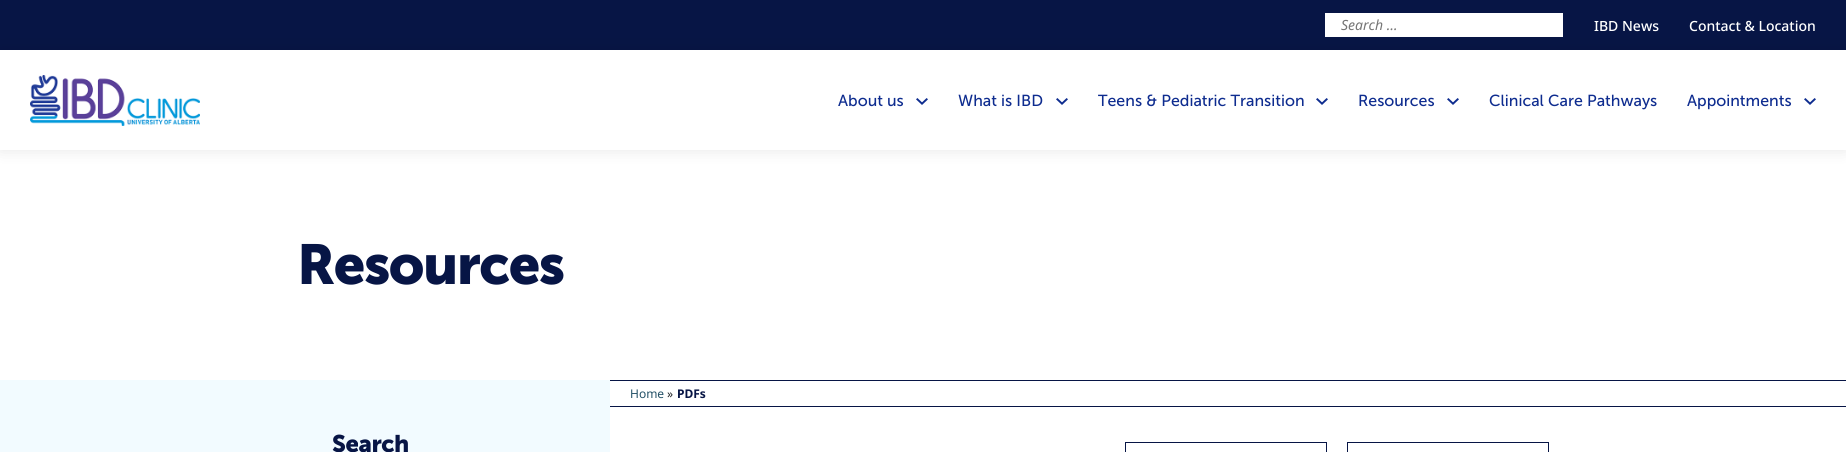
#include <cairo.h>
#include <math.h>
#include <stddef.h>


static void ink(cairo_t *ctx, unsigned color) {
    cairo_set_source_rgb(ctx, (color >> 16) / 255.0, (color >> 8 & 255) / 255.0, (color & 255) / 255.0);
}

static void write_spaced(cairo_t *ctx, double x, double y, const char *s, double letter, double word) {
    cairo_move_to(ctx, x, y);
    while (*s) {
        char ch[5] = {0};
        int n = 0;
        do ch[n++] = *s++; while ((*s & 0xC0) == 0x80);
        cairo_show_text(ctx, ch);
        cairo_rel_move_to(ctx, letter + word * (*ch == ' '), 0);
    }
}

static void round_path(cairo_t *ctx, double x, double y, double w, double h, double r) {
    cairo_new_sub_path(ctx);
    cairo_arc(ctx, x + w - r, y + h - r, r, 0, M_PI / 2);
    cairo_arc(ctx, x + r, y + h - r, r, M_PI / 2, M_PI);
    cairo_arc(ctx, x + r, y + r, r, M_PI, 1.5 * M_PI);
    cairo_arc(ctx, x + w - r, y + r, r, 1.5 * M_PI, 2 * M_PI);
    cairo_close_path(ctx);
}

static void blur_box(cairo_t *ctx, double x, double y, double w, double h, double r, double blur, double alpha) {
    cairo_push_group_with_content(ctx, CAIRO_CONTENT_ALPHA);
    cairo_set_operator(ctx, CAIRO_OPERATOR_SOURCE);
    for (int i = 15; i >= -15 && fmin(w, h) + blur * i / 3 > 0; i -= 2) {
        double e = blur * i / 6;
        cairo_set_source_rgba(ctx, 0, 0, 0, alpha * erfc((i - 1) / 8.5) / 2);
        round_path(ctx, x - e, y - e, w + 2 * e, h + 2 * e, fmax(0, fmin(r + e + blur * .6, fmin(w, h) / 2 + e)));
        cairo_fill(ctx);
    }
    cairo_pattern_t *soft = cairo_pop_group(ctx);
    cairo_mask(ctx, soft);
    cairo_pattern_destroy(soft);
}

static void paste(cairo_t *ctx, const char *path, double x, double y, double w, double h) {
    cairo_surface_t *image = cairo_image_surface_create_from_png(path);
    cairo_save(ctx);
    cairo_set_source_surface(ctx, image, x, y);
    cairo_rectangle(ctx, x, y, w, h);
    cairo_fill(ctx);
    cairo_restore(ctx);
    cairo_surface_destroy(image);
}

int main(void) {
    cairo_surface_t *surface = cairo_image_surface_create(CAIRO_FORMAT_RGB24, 1846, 452);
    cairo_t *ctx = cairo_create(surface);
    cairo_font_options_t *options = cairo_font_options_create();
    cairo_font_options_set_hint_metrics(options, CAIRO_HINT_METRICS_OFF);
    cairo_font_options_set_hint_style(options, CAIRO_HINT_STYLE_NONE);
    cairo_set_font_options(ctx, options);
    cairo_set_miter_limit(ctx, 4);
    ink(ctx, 0xFFFFFF);
    cairo_paint(ctx);
    ink(ctx, 0x071545);
    cairo_rectangle(ctx, 0, 0, 1846, 50);
    cairo_fill(ctx);
    ink(ctx, 0xFFFFFF);
    cairo_rectangle(ctx, 1325, 13, 238, 24);
    cairo_fill(ctx);
    cairo_select_font_face(ctx, "Noto Sans", CAIRO_FONT_SLANT_ITALIC, CAIRO_FONT_WEIGHT_NORMAL);
    cairo_set_font_size(ctx, 14);
    ink(ctx, 0x757575);
    cairo_move_to(ctx, 1341, 30);
    cairo_show_text(ctx, "Search …");
    cairo_select_font_face(ctx, "Noto Sans Medium", CAIRO_FONT_SLANT_NORMAL, CAIRO_FONT_WEIGHT_NORMAL);
    ink(ctx, 0xFFFFFF);
    cairo_move_to(ctx, 1594, 31);
    cairo_show_text(ctx, "IBD News");
    cairo_move_to(ctx, 1689, 31);
    cairo_show_text(ctx, "Contact & Location");
    cairo_save(ctx);
    cairo_set_fill_rule(ctx, CAIRO_FILL_RULE_EVEN_ODD);
    cairo_new_path(ctx);
    cairo_move_to(ctx, 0, 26);
    cairo_line_to(ctx, 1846, 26);
    cairo_line_to(ctx, 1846, 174);
    cairo_line_to(ctx, 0, 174);
    cairo_close_path(ctx);
    cairo_move_to(ctx, 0, 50);
    cairo_line_to(ctx, 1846, 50);
    cairo_line_to(ctx, 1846, 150);
    cairo_line_to(ctx, 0, 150);
    cairo_close_path(ctx);
    cairo_clip(ctx);
    ink(ctx, 0x000000);
    blur_box(ctx, 0, 50, 1846, 100, 0, 7.5, 0.1);
    cairo_restore(ctx);
    paste(ctx, "media/1.png", 30, 75, 170, 51);
    cairo_select_font_face(ctx, "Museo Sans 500", CAIRO_FONT_SLANT_NORMAL, CAIRO_FONT_WEIGHT_NORMAL);
    cairo_set_font_size(ctx, 16);
    ink(ctx, 0x0E2C8F);
    cairo_move_to(ctx, 838, 106);
    cairo_show_text(ctx, "About us");
    paste(ctx, "media/2.png", 916, 98, 12, 7);
    cairo_move_to(ctx, 958, 106);
    cairo_show_text(ctx, "What is IBD");
    paste(ctx, "media/2.png", 1056, 98, 12, 7);
    cairo_move_to(ctx, 1098, 106);
    cairo_show_text(ctx, "Teens & Pediatric Transition");
    paste(ctx, "media/2.png", 1316, 98, 12, 7);
    cairo_move_to(ctx, 1358, 106);
    cairo_show_text(ctx, "Resources");
    paste(ctx, "media/2.png", 1447, 98, 12, 7);
    cairo_move_to(ctx, 1489, 106);
    cairo_show_text(ctx, "Clinical Care Pathways");
    cairo_move_to(ctx, 1687, 106);
    cairo_show_text(ctx, "Appointments");
    paste(ctx, "media/2.png", 1804, 98, 12, 7);
    cairo_select_font_face(ctx, "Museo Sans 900", CAIRO_FONT_SLANT_NORMAL, CAIRO_FONT_WEIGHT_BOLD);
    cairo_set_font_size(ctx, 56);
    ink(ctx, 0x071545);
    write_spaced(ctx, 297, 284, "Resources", -1.5, 0);
    cairo_rectangle(ctx, 610, 380, 1236, 1);
    cairo_fill(ctx);
    cairo_rectangle(ctx, 610, 406, 1236, 1);
    cairo_fill(ctx);
    cairo_select_font_face(ctx, "Noto Sans", CAIRO_FONT_SLANT_NORMAL, CAIRO_FONT_WEIGHT_NORMAL);
    cairo_set_font_size(ctx, 12);
    ink(ctx, 0x245167);
    cairo_move_to(ctx, 630, 398);
    cairo_show_text(ctx, "Home");
    ink(ctx, 0x212529);
    cairo_move_to(ctx, 667, 398);
    cairo_show_text(ctx, "»");
    cairo_select_font_face(ctx, "Noto Sans", CAIRO_FONT_SLANT_NORMAL, CAIRO_FONT_WEIGHT_BOLD);
    ink(ctx, 0x071545);
    cairo_move_to(ctx, 677, 398);
    cairo_show_text(ctx, "PDFs");
    cairo_rectangle(ctx, 1125.5, 442.5, 201, 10);
    cairo_set_line_width(ctx, 1);
    cairo_stroke(ctx);
    cairo_rectangle(ctx, 1347.5, 442.5, 201, 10);
    cairo_stroke(ctx);
    ink(ctx, 0xF2FBFF);
    cairo_rectangle(ctx, 0, 380, 610, 72);
    cairo_fill(ctx);
    cairo_select_font_face(ctx, "Museo Sans 900", CAIRO_FONT_SLANT_NORMAL, CAIRO_FONT_WEIGHT_BOLD);
    cairo_set_font_size(ctx, 24);
    ink(ctx, 0x071545);
    write_spaced(ctx, 332, 452, "Search", -0.5, 0);
    cairo_surface_write_to_png(surface, "image.png");
    cairo_font_options_destroy(options);
    cairo_destroy(ctx);
    cairo_surface_destroy(surface);
    return 0;
}
